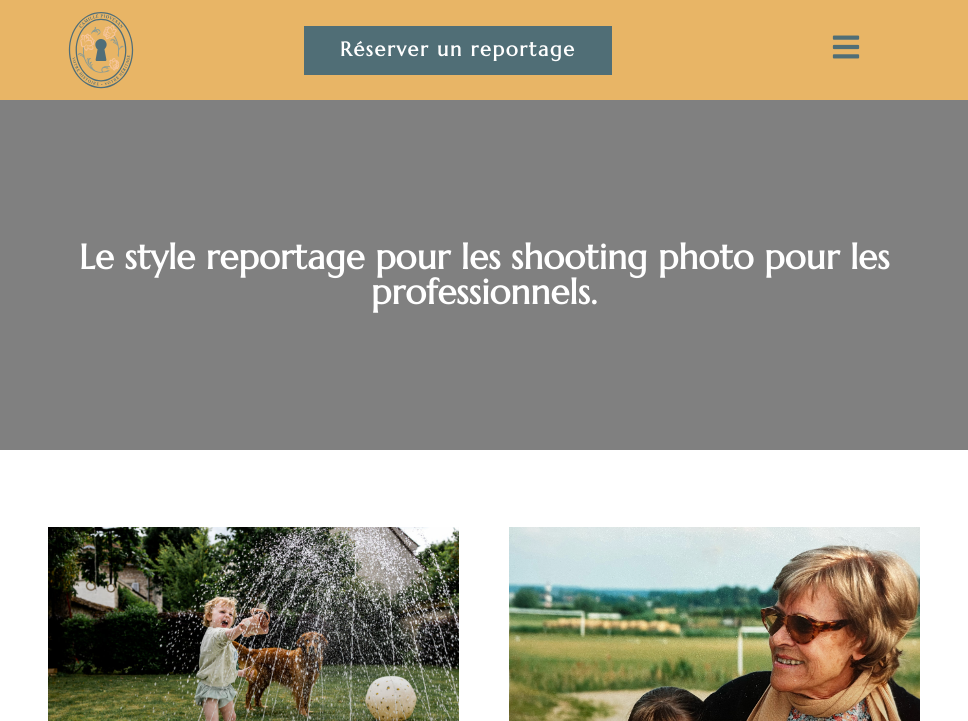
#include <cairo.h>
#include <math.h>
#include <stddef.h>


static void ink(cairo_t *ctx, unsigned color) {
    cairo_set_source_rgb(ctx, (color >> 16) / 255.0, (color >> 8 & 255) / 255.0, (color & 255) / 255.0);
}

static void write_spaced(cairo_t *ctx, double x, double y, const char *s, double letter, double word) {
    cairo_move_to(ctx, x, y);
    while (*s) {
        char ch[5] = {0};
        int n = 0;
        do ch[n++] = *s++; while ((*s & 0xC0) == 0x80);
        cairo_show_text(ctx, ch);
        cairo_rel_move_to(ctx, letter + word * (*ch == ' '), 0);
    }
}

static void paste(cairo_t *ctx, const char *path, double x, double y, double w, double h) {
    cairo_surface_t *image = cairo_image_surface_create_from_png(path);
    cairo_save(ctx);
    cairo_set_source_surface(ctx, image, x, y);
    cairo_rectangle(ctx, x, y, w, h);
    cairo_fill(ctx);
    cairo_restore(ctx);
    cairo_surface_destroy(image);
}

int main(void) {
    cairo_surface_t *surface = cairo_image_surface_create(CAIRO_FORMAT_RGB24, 968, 721);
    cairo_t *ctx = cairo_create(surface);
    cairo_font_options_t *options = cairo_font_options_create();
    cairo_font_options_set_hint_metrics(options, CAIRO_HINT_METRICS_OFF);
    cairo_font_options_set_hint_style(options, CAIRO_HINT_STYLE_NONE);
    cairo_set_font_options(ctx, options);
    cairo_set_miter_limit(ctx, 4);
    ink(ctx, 0xFFFFFF);
    cairo_paint(ctx);
    ink(ctx, 0xE8B566);
    cairo_rectangle(ctx, 0, 0, 968, 100);
    cairo_fill(ctx);
    paste(ctx, "media/1.png", 68, 12, 66, 77);
    ink(ctx, 0x506E76);
    cairo_rectangle(ctx, 304, 26, 308, 49);
    cairo_fill(ctx);
    cairo_select_font_face(ctx, "Marcellus", CAIRO_FONT_SLANT_NORMAL, CAIRO_FONT_WEIGHT_BOLD);
    cairo_set_font_size(ctx, 20);
    ink(ctx, 0xFFFFFF);
    write_spaced(ctx, 340, 56, "Réserver un reportage", 1.6, 0);
    paste(ctx, "media/2.png", 832, 35, 28, 24);
    ink(ctx, 0x808080);
    cairo_rectangle(ctx, 0, 100, 968, 350);
    cairo_fill(ctx);
    cairo_set_font_size(ctx, 35);
    ink(ctx, 0xFFFFFF);
    cairo_move_to(ctx, 79, 269);
    cairo_show_text(ctx, "Le style reportage pour les shooting photo pour les");
    cairo_move_to(ctx, 371, 304);
    cairo_show_text(ctx, "professionnels.");
    paste(ctx, "media/3.png", 48, 527, 411, 194);
    paste(ctx, "media/4.png", 509, 527, 411, 194);
    cairo_surface_write_to_png(surface, "image.png");
    cairo_font_options_destroy(options);
    cairo_destroy(ctx);
    cairo_surface_destroy(surface);
    return 0;
}
